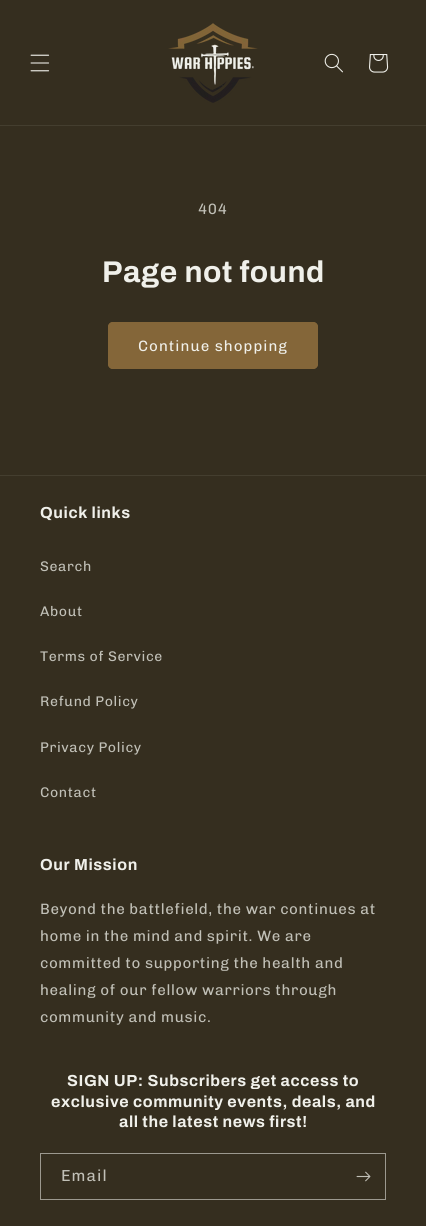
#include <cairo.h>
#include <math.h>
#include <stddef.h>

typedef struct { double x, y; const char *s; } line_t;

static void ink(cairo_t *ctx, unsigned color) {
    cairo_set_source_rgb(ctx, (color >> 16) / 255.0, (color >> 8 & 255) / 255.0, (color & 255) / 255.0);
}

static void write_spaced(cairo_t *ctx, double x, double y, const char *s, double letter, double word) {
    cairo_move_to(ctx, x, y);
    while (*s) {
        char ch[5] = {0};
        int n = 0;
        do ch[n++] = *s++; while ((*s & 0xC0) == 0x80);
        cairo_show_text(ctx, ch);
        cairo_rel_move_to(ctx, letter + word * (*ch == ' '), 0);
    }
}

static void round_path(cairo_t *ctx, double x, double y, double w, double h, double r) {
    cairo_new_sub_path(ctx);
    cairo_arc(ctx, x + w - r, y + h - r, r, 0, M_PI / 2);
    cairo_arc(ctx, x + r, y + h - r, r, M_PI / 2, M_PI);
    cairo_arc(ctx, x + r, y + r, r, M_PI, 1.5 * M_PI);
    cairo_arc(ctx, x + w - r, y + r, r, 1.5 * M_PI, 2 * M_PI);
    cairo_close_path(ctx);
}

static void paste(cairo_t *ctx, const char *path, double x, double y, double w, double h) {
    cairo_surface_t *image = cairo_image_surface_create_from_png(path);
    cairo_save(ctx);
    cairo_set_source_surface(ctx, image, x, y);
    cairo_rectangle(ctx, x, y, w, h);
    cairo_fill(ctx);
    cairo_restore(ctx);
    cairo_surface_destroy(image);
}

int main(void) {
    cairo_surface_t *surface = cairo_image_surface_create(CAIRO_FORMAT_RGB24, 426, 1226);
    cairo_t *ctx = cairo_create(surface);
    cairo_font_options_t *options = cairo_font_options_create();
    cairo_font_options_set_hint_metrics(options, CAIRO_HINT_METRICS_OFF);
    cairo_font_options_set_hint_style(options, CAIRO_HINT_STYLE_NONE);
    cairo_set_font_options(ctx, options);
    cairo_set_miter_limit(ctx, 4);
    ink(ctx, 0x352E1F);
    cairo_paint(ctx);
    ink(ctx, 0x443E2F);
    cairo_rectangle(ctx, 0, 125, 426, 1);
    cairo_fill(ctx);
    paste(ctx, "media/1.png", 30, 54, 20, 18);
    paste(ctx, "media/2.png", 168, 23, 90, 80);
    paste(ctx, "media/3.png", 324, 53, 19, 20);
    paste(ctx, "media/4.png", 369, 54, 20, 19);
    cairo_select_font_face(ctx, "Chivo", CAIRO_FONT_SLANT_NORMAL, CAIRO_FONT_WEIGHT_NORMAL);
    cairo_set_font_size(ctx, 15);
    ink(ctx, 0xC1C0B7);
    write_spaced(ctx, 198, 214, "404", 0.6, 0);
    cairo_select_font_face(ctx, "Archivo", CAIRO_FONT_SLANT_NORMAL, CAIRO_FONT_WEIGHT_BOLD);
    cairo_set_font_size(ctx, 30);
    ink(ctx, 0xF0F0EA);
    write_spaced(ctx, 102, 282, "Page not found", 0.6, 0);
    ink(ctx, 0x846639);
    round_path(ctx, 108, 322, 210, 47, 5);
    cairo_fill(ctx);
    round_path(ctx, 108.5, 322.5, 209, 46, 4.5);
    cairo_set_line_width(ctx, 1);
    cairo_stroke(ctx);
    cairo_select_font_face(ctx, "Chivo", CAIRO_FONT_SLANT_NORMAL, CAIRO_FONT_WEIGHT_NORMAL);
    cairo_set_font_size(ctx, 15);
    ink(ctx, 0xF0F0EA);
    write_spaced(ctx, 138, 351, "Continue shopping", 1, 0);
    ink(ctx, 0x443E2F);
    cairo_rectangle(ctx, 0, 475, 426, 1);
    cairo_fill(ctx);
    cairo_select_font_face(ctx, "Archivo", CAIRO_FONT_SLANT_NORMAL, CAIRO_FONT_WEIGHT_BOLD);
    cairo_set_font_size(ctx, 16);
    ink(ctx, 0xF0F0EA);
    write_spaced(ctx, 40, 518, "Quick links", 0.6, 0);
    cairo_select_font_face(ctx, "Chivo", CAIRO_FONT_SLANT_NORMAL, CAIRO_FONT_WEIGHT_NORMAL);
    cairo_set_font_size(ctx, 14);
    ink(ctx, 0xC1C0B7);
    {
        static const line_t items[] = {
            {40, 571, "Search"},
            {40, 616, "About"},
            {40, 661, "Terms of Service"},
            {40, 706, "Refund Policy"},
            {40, 752, "Privacy Policy"},
            {40, 797, "Contact"},
        };
        for (size_t i = 0; i < sizeof items / sizeof *items; i++) {
            write_spaced(ctx, items[i].x, items[i].y, items[i].s, 0.6, 0);
        }
    }
    cairo_select_font_face(ctx, "Archivo", CAIRO_FONT_SLANT_NORMAL, CAIRO_FONT_WEIGHT_BOLD);
    cairo_set_font_size(ctx, 16);
    ink(ctx, 0xF0F0EA);
    write_spaced(ctx, 40, 870, "Our Mission", 0.6, 0);
    cairo_select_font_face(ctx, "Chivo", CAIRO_FONT_SLANT_NORMAL, CAIRO_FONT_WEIGHT_NORMAL);
    cairo_set_font_size(ctx, 15);
    ink(ctx, 0xC1C0B7);
    {
        static const line_t items[] = {
            {40, 914, "Beyond the battlefield, the war continues at"},
            {40, 941, "home in the mind and spirit. We are"},
            {40, 968, "committed to supporting the health and"},
            {40, 995, "healing of our fellow warriors through"},
            {40, 1022, "community and music."},
        };
        for (size_t i = 0; i < sizeof items / sizeof *items; i++) {
            write_spaced(ctx, items[i].x, items[i].y, items[i].s, 0.6, 0);
        }
    }
    cairo_select_font_face(ctx, "Archivo", CAIRO_FONT_SLANT_NORMAL, CAIRO_FONT_WEIGHT_BOLD);
    cairo_set_font_size(ctx, 16);
    ink(ctx, 0xF0F0EA);
    {
        static const line_t items[] = {
            {67, 1086, "SIGN UP: Subscribers get access to"},
            {51, 1107, "exclusive community events, deals, and"},
            {119, 1127, "all the latest news first!"},
        };
        for (size_t i = 0; i < sizeof items / sizeof *items; i++) {
            write_spaced(ctx, items[i].x, items[i].y, items[i].s, 0.6, 0);
        }
    }
    cairo_rectangle(ctx, 40.5, 1153.5, 345, 46);
    ink(ctx, 0x9C998F);
    cairo_stroke(ctx);
    cairo_select_font_face(ctx, "Chivo", CAIRO_FONT_SLANT_NORMAL, CAIRO_FONT_WEIGHT_NORMAL);
    ink(ctx, 0xC1C0B7);
    write_spaced(ctx, 61, 1181, "Email", 1, 0);
    paste(ctx, "media/5.png", 356, 1171, 15, 11);
    cairo_surface_write_to_png(surface, "image.png");
    cairo_font_options_destroy(options);
    cairo_destroy(ctx);
    cairo_surface_destroy(surface);
    return 0;
}
